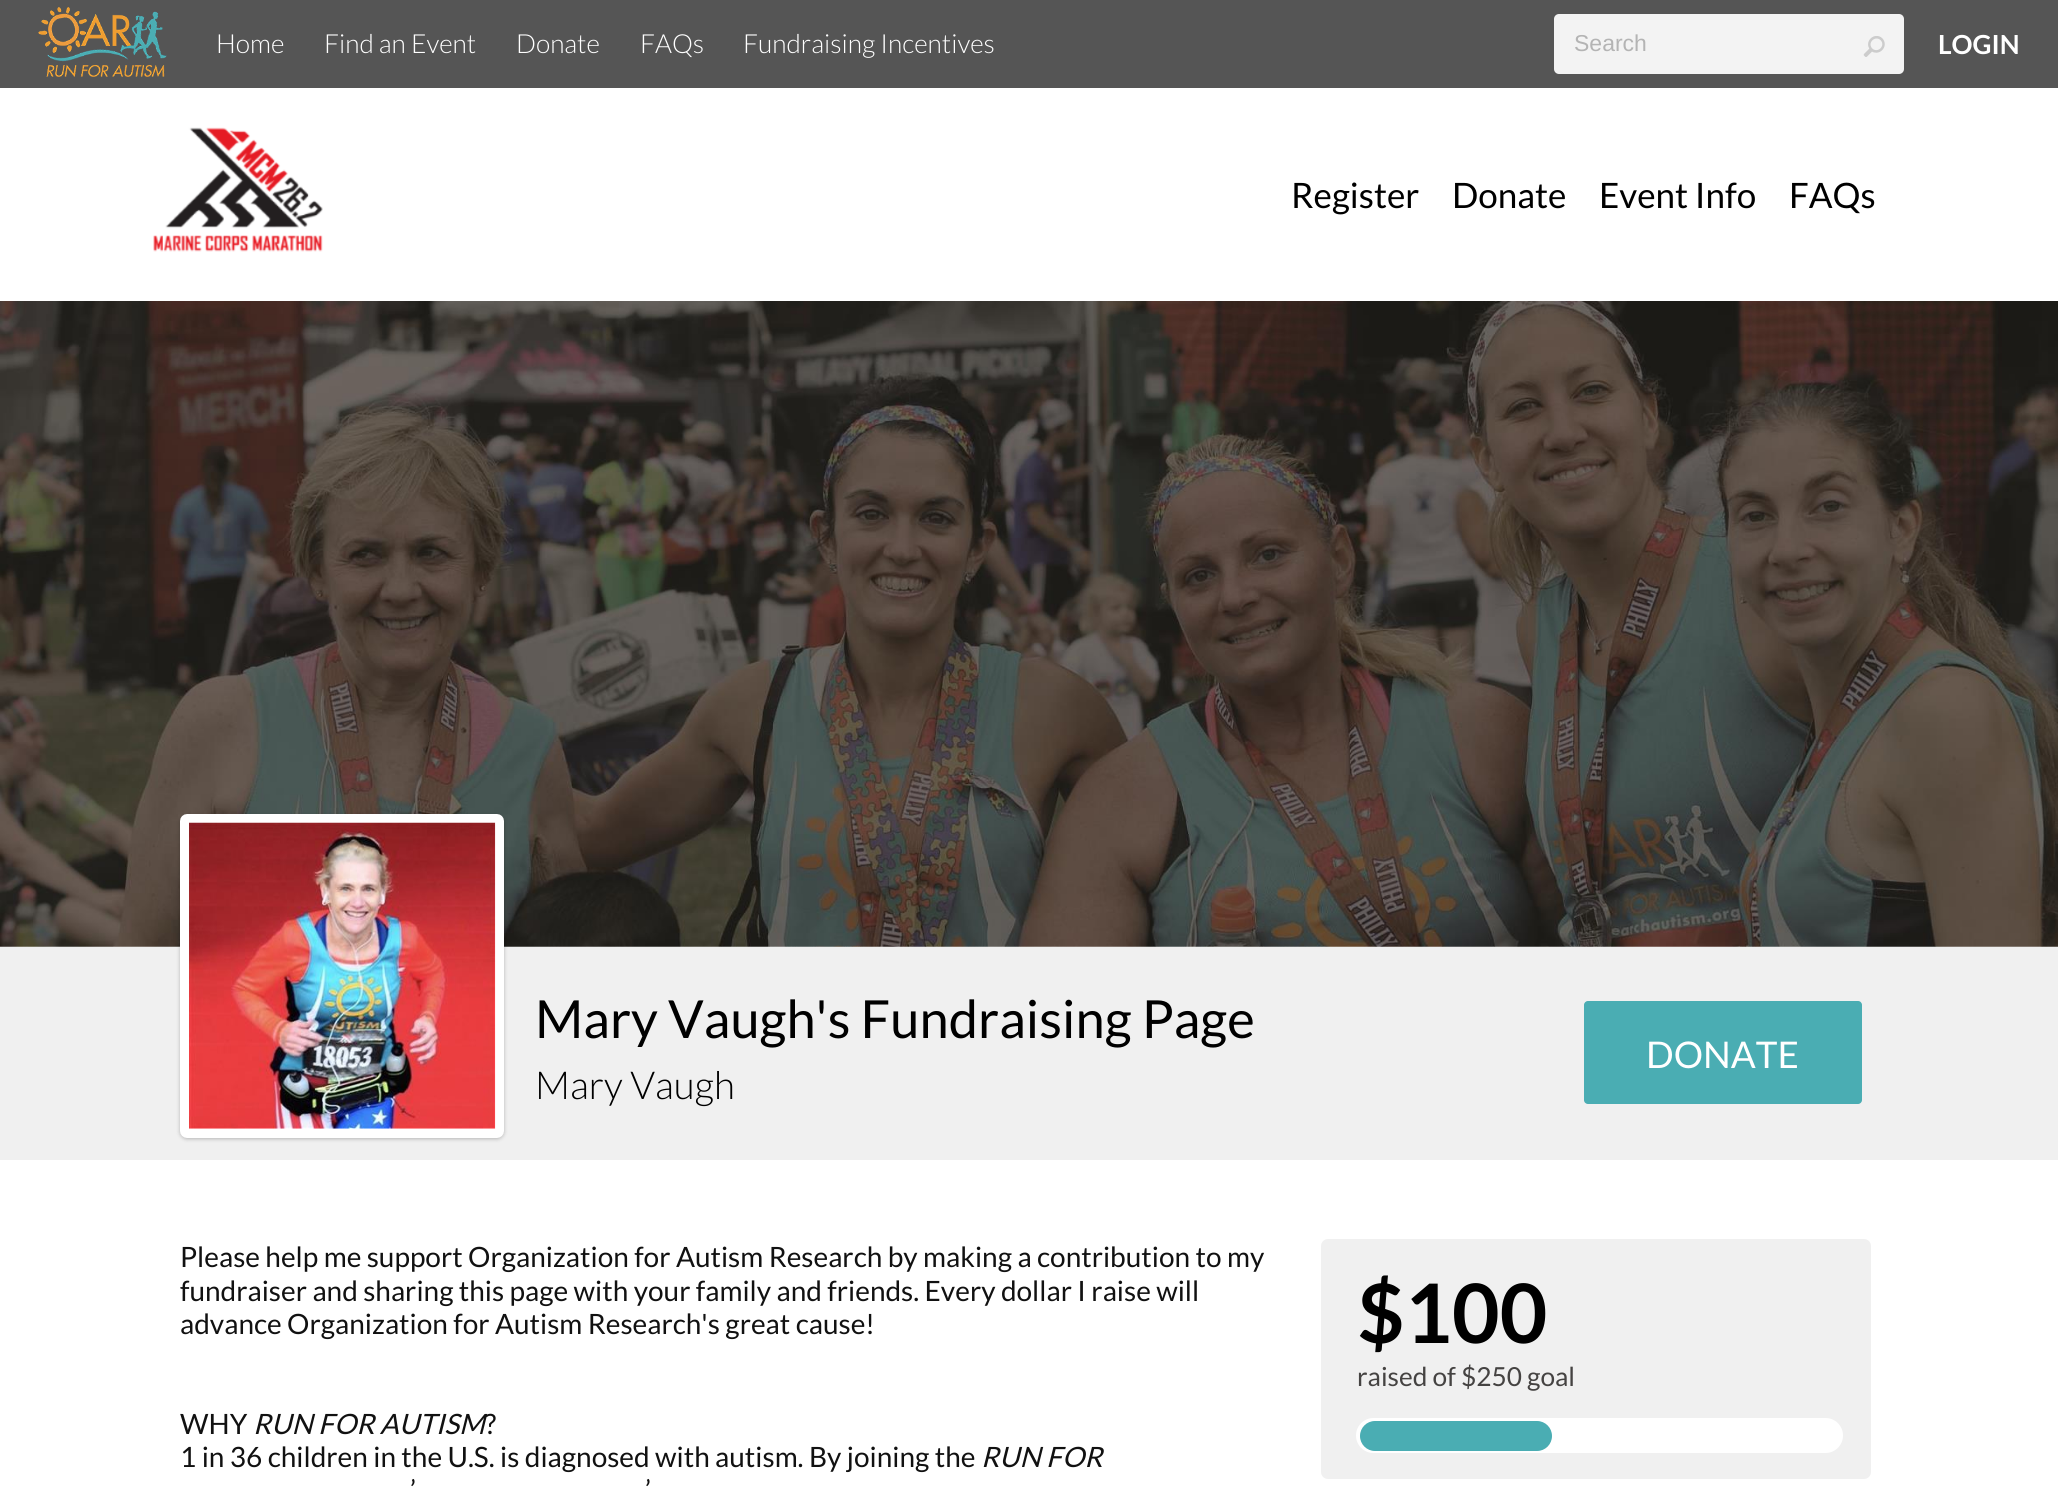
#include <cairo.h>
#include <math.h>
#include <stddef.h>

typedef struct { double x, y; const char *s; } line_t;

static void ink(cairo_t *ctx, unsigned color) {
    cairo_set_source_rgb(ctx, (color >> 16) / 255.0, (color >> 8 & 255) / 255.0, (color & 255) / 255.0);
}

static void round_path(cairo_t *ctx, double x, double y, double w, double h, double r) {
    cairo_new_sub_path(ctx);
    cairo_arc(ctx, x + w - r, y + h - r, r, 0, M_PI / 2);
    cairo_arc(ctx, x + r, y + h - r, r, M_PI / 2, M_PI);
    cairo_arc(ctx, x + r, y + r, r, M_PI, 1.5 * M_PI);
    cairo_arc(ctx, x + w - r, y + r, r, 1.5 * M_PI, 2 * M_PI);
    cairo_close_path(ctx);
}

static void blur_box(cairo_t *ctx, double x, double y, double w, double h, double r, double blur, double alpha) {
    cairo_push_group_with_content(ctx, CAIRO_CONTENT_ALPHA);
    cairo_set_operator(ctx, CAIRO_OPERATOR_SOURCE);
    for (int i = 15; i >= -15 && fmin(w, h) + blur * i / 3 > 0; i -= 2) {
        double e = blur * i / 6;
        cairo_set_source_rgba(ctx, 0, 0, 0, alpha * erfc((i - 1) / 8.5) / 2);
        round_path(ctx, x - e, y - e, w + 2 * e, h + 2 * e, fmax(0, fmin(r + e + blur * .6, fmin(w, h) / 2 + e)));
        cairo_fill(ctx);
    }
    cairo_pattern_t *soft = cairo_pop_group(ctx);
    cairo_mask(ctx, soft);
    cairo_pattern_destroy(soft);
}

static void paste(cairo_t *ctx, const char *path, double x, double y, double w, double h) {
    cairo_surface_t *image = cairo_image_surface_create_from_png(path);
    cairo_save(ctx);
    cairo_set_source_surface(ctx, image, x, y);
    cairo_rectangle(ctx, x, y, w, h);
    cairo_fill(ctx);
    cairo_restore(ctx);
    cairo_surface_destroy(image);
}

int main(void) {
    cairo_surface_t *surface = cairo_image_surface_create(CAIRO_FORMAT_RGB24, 2058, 1492);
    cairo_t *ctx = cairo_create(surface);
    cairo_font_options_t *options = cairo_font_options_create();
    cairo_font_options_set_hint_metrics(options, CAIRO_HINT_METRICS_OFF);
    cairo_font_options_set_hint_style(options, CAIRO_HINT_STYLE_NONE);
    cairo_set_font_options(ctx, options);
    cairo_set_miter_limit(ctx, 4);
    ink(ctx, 0xFFFFFF);
    cairo_paint(ctx);
    ink(ctx, 0x555555);
    cairo_rectangle(ctx, 0, 0, 2058, 88);
    cairo_fill(ctx);
    paste(ctx, "media/1.png", 38, 7, 129, 70);
    cairo_select_font_face(ctx, "Lato Light", CAIRO_FONT_SLANT_NORMAL, CAIRO_FONT_WEIGHT_NORMAL);
    cairo_set_font_size(ctx, 26.25);
    ink(ctx, 0xFFFFFF);
    {
        static const line_t items[] = {
            {216, 53, "Home"},
            {324, 53, "Find an Event"},
            {516, 53, "Donate"},
            {640, 53, "FAQs"},
            {743, 53, "Fundraising Incentives"},
        };
        for (size_t i = 0; i < sizeof items / sizeof *items; i++) {
            cairo_move_to(ctx, items[i].x, items[i].y);
            cairo_show_text(ctx, items[i].s);
        }
    }
    ink(ctx, 0xF3F3F3);
    round_path(ctx, 1554, 14, 350, 60, 5);
    cairo_fill(ctx);
    cairo_select_font_face(ctx, "Liberation Sans", CAIRO_FONT_SLANT_NORMAL, CAIRO_FONT_WEIGHT_NORMAL);
    cairo_set_font_size(ctx, 23);
    ink(ctx, 0xB4B4B4);
    cairo_move_to(ctx, 1574, 51);
    cairo_show_text(ctx, "Search");
    paste(ctx, "media/2.png", 1863, 36, 22, 21);
    cairo_select_font_face(ctx, "Lato", CAIRO_FONT_SLANT_NORMAL, CAIRO_FONT_WEIGHT_BOLD);
    cairo_set_font_size(ctx, 26.25);
    ink(ctx, 0xFFFFFF);
    cairo_move_to(ctx, 1938, 54);
    cairo_show_text(ctx, "LOGIN");
    paste(ctx, "media/3.png", 153, 127, 170, 125);
    cairo_select_font_face(ctx, "Lato", CAIRO_FONT_SLANT_NORMAL, CAIRO_FONT_WEIGHT_NORMAL);
    cairo_set_font_size(ctx, 35);
    ink(ctx, 0x000000);
    {
        static const line_t items[] = {
            {1291, 208, "Register"},
            {1452, 208, "Donate"},
            {1599, 208, "Event Info"},
            {1789, 208, "FAQs"},
        };
        for (size_t i = 0; i < sizeof items / sizeof *items; i++) {
            cairo_move_to(ctx, items[i].x, items[i].y);
            cairo_show_text(ctx, items[i].s);
        }
    }
    paste(ctx, "media/4.png", 0, 301, 2058, 646);
    ink(ctx, 0xF0F0F0);
    cairo_rectangle(ctx, 0, 947, 2058, 213);
    cairo_fill(ctx);
    ink(ctx, 0x000000);
    blur_box(ctx, 180, 816, 324, 323, 7, 2, 0.25);
    round_path(ctx, 184.5, 818.5, 315, 315, 2.5);
    ink(ctx, 0xFFFFFF);
    cairo_set_line_width(ctx, 9);
    cairo_stroke(ctx);
    cairo_rectangle(ctx, 189, 1128, 306, 1);
    cairo_fill(ctx);
    paste(ctx, "media/5.png", 189, 822, 307, 307);
    cairo_set_font_size(ctx, 52.5);
    ink(ctx, 0x000000);
    cairo_move_to(ctx, 535, 1038);
    cairo_show_text(ctx, "Mary Vaugh's Fundraising Page");
    cairo_select_font_face(ctx, "Lato Light", CAIRO_FONT_SLANT_NORMAL, CAIRO_FONT_WEIGHT_NORMAL);
    cairo_set_font_size(ctx, 38.5);
    cairo_move_to(ctx, 535, 1099);
    cairo_show_text(ctx, "Mary Vaugh");
    ink(ctx, 0x4AADB3);
    round_path(ctx, 1584, 1001, 278, 103, 4);
    cairo_fill(ctx);
    cairo_select_font_face(ctx, "Lato", CAIRO_FONT_SLANT_NORMAL, CAIRO_FONT_WEIGHT_NORMAL);
    cairo_set_font_size(ctx, 36.75);
    ink(ctx, 0xFFFFFF);
    cairo_move_to(ctx, 1646, 1068);
    cairo_show_text(ctx, "DONATE");
    cairo_set_font_size(ctx, 28);
    ink(ctx, 0x111111);
    {
        static const line_t items[] = {
            {180, 1267, "Please help me support Organization for Autism Research by making a contribution to my"},
            {180, 1301, "fundraiser and sharing this page with your family and friends. Every dollar I raise will"},
            {180, 1334, "advance Organization for Autism Research's great cause!"},
            {180, 1434, "WHY"},
        };
        for (size_t i = 0; i < sizeof items / sizeof *items; i++) {
            cairo_move_to(ctx, items[i].x, items[i].y);
            cairo_show_text(ctx, items[i].s);
        }
    }
    cairo_select_font_face(ctx, "Lato", CAIRO_FONT_SLANT_ITALIC, CAIRO_FONT_WEIGHT_NORMAL);
    cairo_move_to(ctx, 253, 1434);
    cairo_show_text(ctx, "RUN FOR AUTISM");
    cairo_select_font_face(ctx, "Lato", CAIRO_FONT_SLANT_NORMAL, CAIRO_FONT_WEIGHT_NORMAL);
    cairo_move_to(ctx, 485, 1434);
    cairo_show_text(ctx, "?");
    cairo_move_to(ctx, 180, 1467);
    cairo_show_text(ctx, "1 in 36 children in the U.S. is diagnosed with autism. By joining the");
    cairo_select_font_face(ctx, "Lato", CAIRO_FONT_SLANT_ITALIC, CAIRO_FONT_WEIGHT_NORMAL);
    cairo_move_to(ctx, 981, 1467);
    cairo_show_text(ctx, "RUN FOR");
    cairo_select_font_face(ctx, "Lato", CAIRO_FONT_SLANT_NORMAL, CAIRO_FONT_WEIGHT_NORMAL);
    cairo_move_to(ctx, 410, 1500);
    cairo_show_text(ctx, "’");
    cairo_move_to(ctx, 645, 1500);
    cairo_show_text(ctx, "’");
    ink(ctx, 0xF0F0F0);
    round_path(ctx, 1321, 1239, 550, 240, 7);
    cairo_fill(ctx);
    cairo_select_font_face(ctx, "Lato", CAIRO_FONT_SLANT_NORMAL, CAIRO_FONT_WEIGHT_BOLD);
    cairo_set_font_size(ctx, 82);
    ink(ctx, 0x000000);
    cairo_move_to(ctx, 1357, 1343);
    cairo_show_text(ctx, "$100");
    cairo_select_font_face(ctx, "Lato", CAIRO_FONT_SLANT_NORMAL, CAIRO_FONT_WEIGHT_NORMAL);
    cairo_set_font_size(ctx, 26.25);
    ink(ctx, 0x454342);
    cairo_move_to(ctx, 1357, 1386);
    cairo_show_text(ctx, "raised of $250 goal");
    ink(ctx, 0xFFFFFF);
    round_path(ctx, 1356, 1418, 487, 35, 17.5);
    cairo_fill(ctx);
    ink(ctx, 0x4AADB3);
    round_path(ctx, 1360, 1421, 192, 30, 15);
    cairo_fill(ctx);
    cairo_surface_write_to_png(surface, "image.png");
    cairo_font_options_destroy(options);
    cairo_destroy(ctx);
    cairo_surface_destroy(surface);
    return 0;
}
